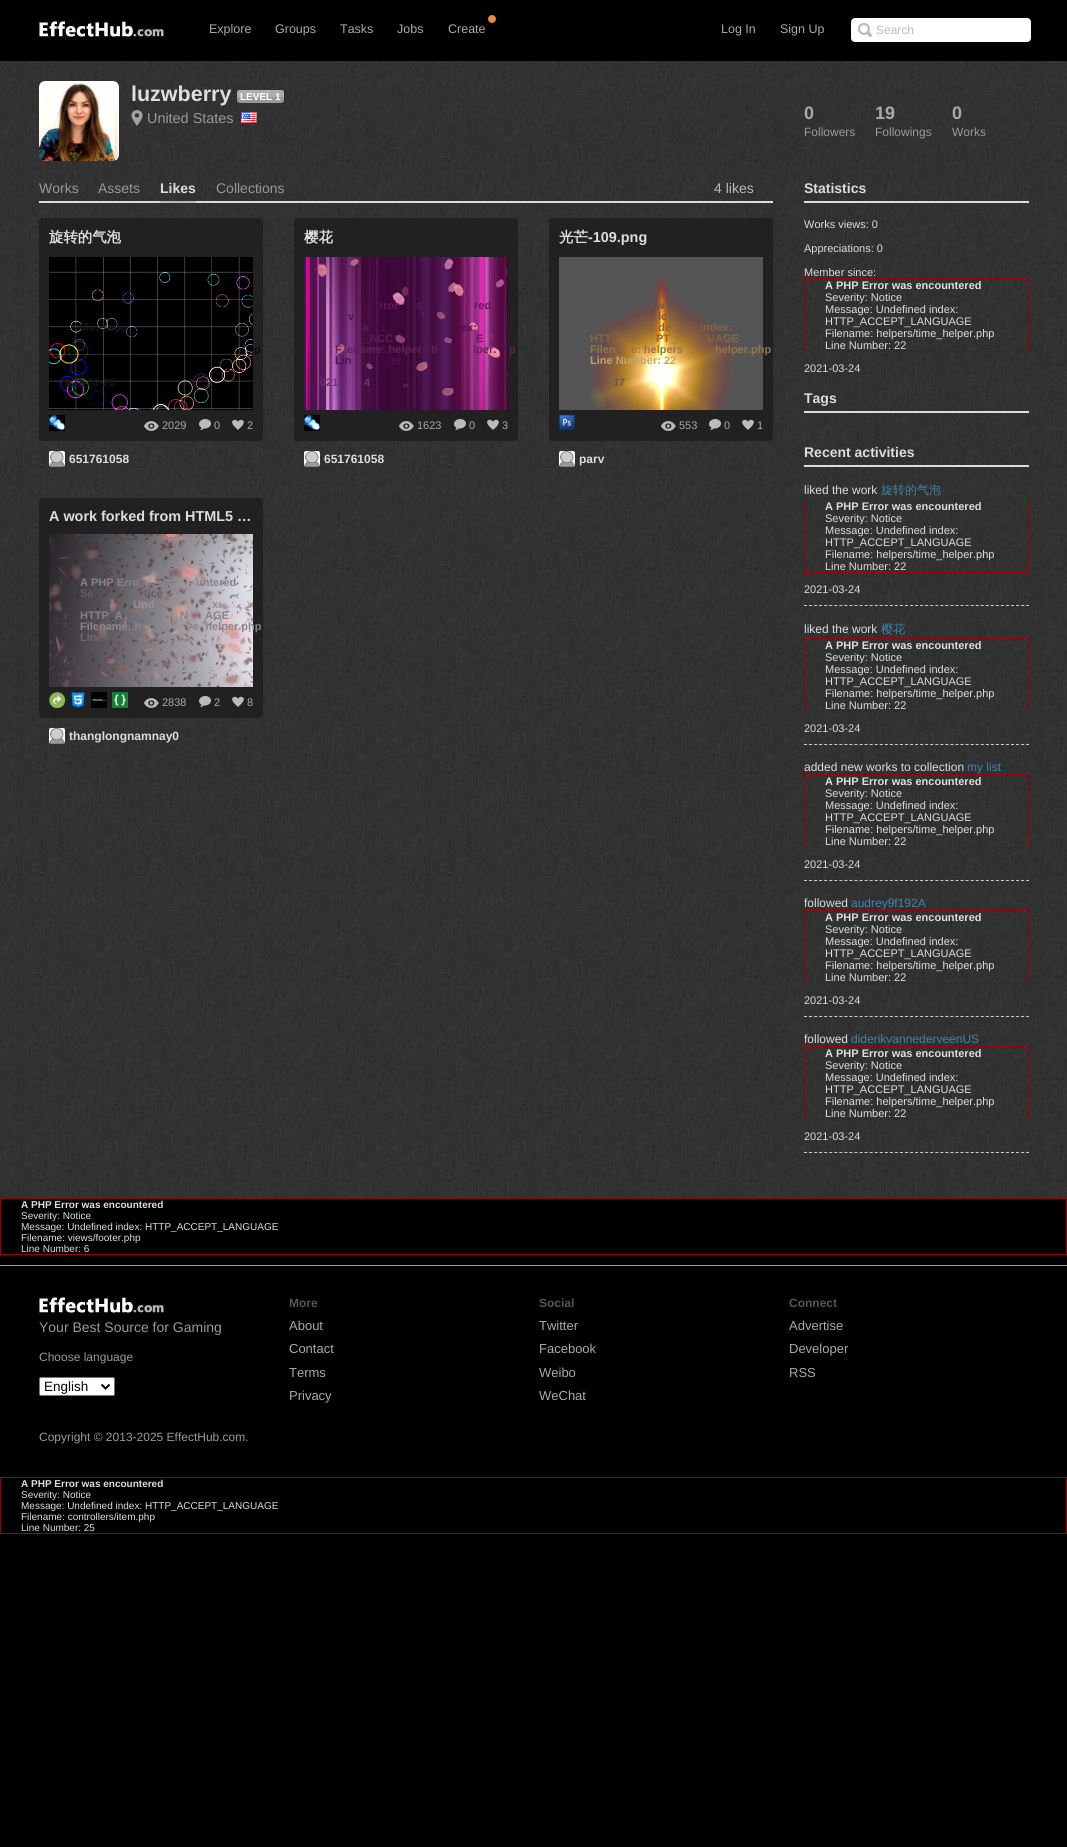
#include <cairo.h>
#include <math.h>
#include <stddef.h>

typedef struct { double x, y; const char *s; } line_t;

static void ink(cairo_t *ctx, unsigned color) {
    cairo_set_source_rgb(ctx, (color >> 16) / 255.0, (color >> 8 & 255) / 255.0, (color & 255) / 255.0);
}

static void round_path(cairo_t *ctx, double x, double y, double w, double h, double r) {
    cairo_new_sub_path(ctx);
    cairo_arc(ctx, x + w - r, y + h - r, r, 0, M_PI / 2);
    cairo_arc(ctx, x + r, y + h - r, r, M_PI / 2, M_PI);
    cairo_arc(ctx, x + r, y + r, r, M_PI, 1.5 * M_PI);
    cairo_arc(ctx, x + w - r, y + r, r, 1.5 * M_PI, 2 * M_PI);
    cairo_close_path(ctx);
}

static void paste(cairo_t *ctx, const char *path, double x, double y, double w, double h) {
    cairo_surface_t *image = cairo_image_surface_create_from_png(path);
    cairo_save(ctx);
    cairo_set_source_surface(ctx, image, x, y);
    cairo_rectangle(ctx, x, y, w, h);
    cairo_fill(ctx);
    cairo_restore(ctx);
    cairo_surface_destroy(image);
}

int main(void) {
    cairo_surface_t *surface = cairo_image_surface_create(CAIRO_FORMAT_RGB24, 1067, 1847);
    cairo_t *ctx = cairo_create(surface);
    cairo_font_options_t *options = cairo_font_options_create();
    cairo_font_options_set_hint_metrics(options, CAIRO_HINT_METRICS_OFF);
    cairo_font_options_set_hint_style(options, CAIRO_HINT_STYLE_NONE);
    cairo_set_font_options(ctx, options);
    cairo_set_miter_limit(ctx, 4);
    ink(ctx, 0x000000);
    cairo_paint(ctx);
    paste(ctx, "media/1.png", 39, 20, 128, 20);
    cairo_select_font_face(ctx, "Liberation Sans", CAIRO_FONT_SLANT_NORMAL, CAIRO_FONT_WEIGHT_NORMAL);
    cairo_set_font_size(ctx, 12.5);
    ink(ctx, 0xAAAAAA);
    {
        static const line_t items[] = {
            {209, 33, "Explore"},
            {275, 33, "Groups"},
            {340, 33, "Tasks"},
            {397, 33, "Jobs"},
        };
        for (size_t i = 0; i < sizeof items / sizeof *items; i++) {
            cairo_move_to(ctx, items[i].x, items[i].y);
            cairo_show_text(ctx, items[i].s);
        }
    }
    paste(ctx, "media/2.png", 488, 15, 8, 8);
    {
        static const line_t items[] = {
            {448, 33, "Create"},
            {721, 33, "Log In"},
            {780, 33, "Sign Up"},
        };
        for (size_t i = 0; i < sizeof items / sizeof *items; i++) {
            cairo_move_to(ctx, items[i].x, items[i].y);
            cairo_show_text(ctx, items[i].s);
        }
    }
    ink(ctx, 0xFFFFFF);
    round_path(ctx, 851, 18, 180, 24, 4);
    cairo_fill(ctx);
    paste(ctx, "media/3.png", 858, 23, 14, 14);
    cairo_set_font_size(ctx, 12);
    ink(ctx, 0xBBBBBB);
    cairo_move_to(ctx, 876, 34);
    cairo_show_text(ctx, "Search");
    paste(ctx, "media/4.png", 0, 61, 1067, 1137);
    paste(ctx, "media/5.png", 39, 81, 80, 80);
    cairo_select_font_face(ctx, "Liberation Sans", CAIRO_FONT_SLANT_NORMAL, CAIRO_FONT_WEIGHT_BOLD);
    cairo_set_font_size(ctx, 21.5);
    ink(ctx, 0xDDDDDD);
    cairo_move_to(ctx, 131, 101);
    cairo_show_text(ctx, "luzwberry");
    ink(ctx, 0x999999);
    round_path(ctx, 237, 90, 47, 13, 3);
    cairo_fill(ctx);
    cairo_set_source_rgba(ctx, 1, 1, 1, 0.2);
    cairo_rectangle(ctx, 237, 90, 47, 7);
    cairo_fill(ctx);
    cairo_set_font_size(ctx, 10);
    ink(ctx, 0xFFFFFF);
    cairo_move_to(ctx, 240, 100);
    cairo_show_text(ctx, "LEVEL 1");
    paste(ctx, "media/6.png", 131, 110, 12, 16);
    cairo_select_font_face(ctx, "Liberation Sans", CAIRO_FONT_SLANT_NORMAL, CAIRO_FONT_WEIGHT_NORMAL);
    cairo_set_font_size(ctx, 14.4);
    ink(ctx, 0x999999);
    cairo_move_to(ctx, 147, 123);
    cairo_show_text(ctx, "United States");
    paste(ctx, "media/7.png", 241, 112, 16, 11);
    cairo_select_font_face(ctx, "Liberation Sans", CAIRO_FONT_SLANT_NORMAL, CAIRO_FONT_WEIGHT_BOLD);
    cairo_set_font_size(ctx, 18);
    ink(ctx, 0xAAAAAA);
    cairo_move_to(ctx, 804, 119);
    cairo_show_text(ctx, "0");
    cairo_select_font_face(ctx, "Liberation Sans", CAIRO_FONT_SLANT_NORMAL, CAIRO_FONT_WEIGHT_NORMAL);
    cairo_set_font_size(ctx, 12);
    ink(ctx, 0x999999);
    cairo_move_to(ctx, 804, 136);
    cairo_show_text(ctx, "Followers");
    cairo_select_font_face(ctx, "Liberation Sans", CAIRO_FONT_SLANT_NORMAL, CAIRO_FONT_WEIGHT_BOLD);
    cairo_set_font_size(ctx, 18);
    ink(ctx, 0xAAAAAA);
    cairo_move_to(ctx, 875, 119);
    cairo_show_text(ctx, "19");
    cairo_select_font_face(ctx, "Liberation Sans", CAIRO_FONT_SLANT_NORMAL, CAIRO_FONT_WEIGHT_NORMAL);
    cairo_set_font_size(ctx, 12);
    ink(ctx, 0x999999);
    cairo_move_to(ctx, 875, 136);
    cairo_show_text(ctx, "Followings");
    cairo_select_font_face(ctx, "Liberation Sans", CAIRO_FONT_SLANT_NORMAL, CAIRO_FONT_WEIGHT_BOLD);
    cairo_set_font_size(ctx, 18);
    ink(ctx, 0xAAAAAA);
    cairo_move_to(ctx, 952, 119);
    cairo_show_text(ctx, "0");
    cairo_select_font_face(ctx, "Liberation Sans", CAIRO_FONT_SLANT_NORMAL, CAIRO_FONT_WEIGHT_NORMAL);
    cairo_set_font_size(ctx, 12);
    ink(ctx, 0x999999);
    cairo_move_to(ctx, 952, 136);
    cairo_show_text(ctx, "Works");
    ink(ctx, 0xDDDDDD);
    cairo_rectangle(ctx, 39, 201, 734, 2);
    cairo_fill(ctx);
    cairo_set_font_size(ctx, 14);
    ink(ctx, 0x999999);
    cairo_move_to(ctx, 39, 193);
    cairo_show_text(ctx, "Works");
    cairo_move_to(ctx, 98, 193);
    cairo_show_text(ctx, "Assets");
    ink(ctx, 0xBBBBBB);
    cairo_rectangle(ctx, 160, 201, 36, 2);
    cairo_fill(ctx);
    cairo_select_font_face(ctx, "Liberation Sans", CAIRO_FONT_SLANT_NORMAL, CAIRO_FONT_WEIGHT_BOLD);
    ink(ctx, 0xDDDDDD);
    cairo_move_to(ctx, 160, 193);
    cairo_show_text(ctx, "Likes");
    cairo_select_font_face(ctx, "Liberation Sans", CAIRO_FONT_SLANT_NORMAL, CAIRO_FONT_WEIGHT_NORMAL);
    ink(ctx, 0x999999);
    cairo_move_to(ctx, 216, 193);
    cairo_show_text(ctx, "Collections");
    ink(ctx, 0xBBBBBB);
    cairo_move_to(ctx, 714, 193);
    cairo_show_text(ctx, "4 likes");
    ink(ctx, 0x212121);
    round_path(ctx, 39, 218, 224, 223, 3);
    cairo_fill(ctx);
    cairo_select_font_face(ctx, "WenQuanYi Zen Hei", CAIRO_FONT_SLANT_NORMAL, CAIRO_FONT_WEIGHT_BOLD);
    cairo_set_font_size(ctx, 14.4);
    ink(ctx, 0xDDDDDD);
    cairo_move_to(ctx, 49, 242);
    cairo_show_text(ctx, "旋转的气泡");
    paste(ctx, "media/8.png", 49, 257, 204, 153);
    cairo_select_font_face(ctx, "Liberation Sans", CAIRO_FONT_SLANT_NORMAL, CAIRO_FONT_WEIGHT_BOLD);
    cairo_set_font_size(ctx, 11);
    ink(ctx, 0x151717);
    cairo_move_to(ctx, 80, 331);
    cairo_show_text(ctx, "Message:");
    ink(ctx, 0x080808);
    cairo_move_to(ctx, 254, 353);
    cairo_show_text(ctx, "p");
    ink(ctx, 0x151717);
    cairo_move_to(ctx, 59, 386);
    cairo_show_text(ctx, "2021-01-20");
    paste(ctx, "media/9.png", 144, 421, 15, 10);
    cairo_select_font_face(ctx, "Liberation Sans", CAIRO_FONT_SLANT_NORMAL, CAIRO_FONT_WEIGHT_NORMAL);
    ink(ctx, 0xAAAAAA);
    cairo_move_to(ctx, 162, 429);
    cairo_show_text(ctx, "2029");
    paste(ctx, "media/10.png", 199, 419, 12, 11);
    cairo_move_to(ctx, 214, 429);
    cairo_show_text(ctx, "0");
    paste(ctx, "media/11.png", 232, 419, 12, 11);
    cairo_move_to(ctx, 247, 429);
    cairo_show_text(ctx, "2");
    paste(ctx, "media/12.png", 49, 415, 16, 16);
    paste(ctx, "media/13.png", 49, 451, 16, 16);
    cairo_select_font_face(ctx, "Liberation Sans", CAIRO_FONT_SLANT_NORMAL, CAIRO_FONT_WEIGHT_BOLD);
    cairo_set_font_size(ctx, 12);
    ink(ctx, 0xDDDDDD);
    cairo_move_to(ctx, 69, 463);
    cairo_show_text(ctx, "651761058");
    ink(ctx, 0x212121);
    round_path(ctx, 294, 218, 224, 223, 3);
    cairo_fill(ctx);
    cairo_select_font_face(ctx, "WenQuanYi Zen Hei", CAIRO_FONT_SLANT_NORMAL, CAIRO_FONT_WEIGHT_BOLD);
    cairo_set_font_size(ctx, 14.4);
    ink(ctx, 0xDDDDDD);
    cairo_move_to(ctx, 304, 242);
    cairo_show_text(ctx, "樱花");
    paste(ctx, "media/14.png", 304, 257, 204, 153);
    cairo_select_font_face(ctx, "Liberation Sans", CAIRO_FONT_SLANT_NORMAL, CAIRO_FONT_WEIGHT_NORMAL);
    cairo_set_font_size(ctx, 11);
    ink(ctx, 0x9E4876);
    cairo_move_to(ctx, 314, 270);
    cairo_show_text(ctx, "...");
    cairo_select_font_face(ctx, "Liberation Sans", CAIRO_FONT_SLANT_NORMAL, CAIRO_FONT_WEIGHT_BOLD);
    ink(ctx, 0x611A59);
    {
        static const line_t items[] = {
            {379, 309, "rror"},
            {416, 309, "s"},
            {474, 309, "red"},
        };
        for (size_t i = 0; i < sizeof items / sizeof *items; i++) {
            cairo_move_to(ctx, items[i].x, items[i].y);
            cairo_show_text(ctx, items[i].s);
        }
    }
    ink(ctx, 0x4F144C);
    cairo_move_to(ctx, 348, 320);
    cairo_show_text(ctx, "v");
    ink(ctx, 0x611A59);
    cairo_move_to(ctx, 362, 331);
    cairo_show_text(ctx, "a");
    cairo_move_to(ctx, 381, 331);
    cairo_show_text(ctx, ":");
    ink(ctx, 0x4F144C);
    cairo_move_to(ctx, 461, 331);
    cairo_show_text(ctx, "ex:");
    ink(ctx, 0x611A59);
    cairo_move_to(ctx, 363, 342);
    cairo_show_text(ctx, "_ACC");
    cairo_move_to(ctx, 476, 342);
    cairo_show_text(ctx, "E");
    ink(ctx, 0x642158);
    {
        static const line_t items[] = {
            {335, 353, "F"},
            {347, 353, "ename: helper"},
            {431, 353, "ti"},
            {473, 353, "lper."},
            {509, 353, "p"},
        };
        for (size_t i = 0; i < sizeof items / sizeof *items; i++) {
            cairo_move_to(ctx, items[i].x, items[i].y);
            cairo_show_text(ctx, items[i].s);
        }
    }
    ink(ctx, 0x4F144C);
    cairo_move_to(ctx, 335, 364);
    cairo_show_text(ctx, "Lin");
    cairo_move_to(ctx, 391, 364);
    cairo_show_text(ctx, "er:");
    ink(ctx, 0x743076);
    cairo_move_to(ctx, 320, 386);
    cairo_show_text(ctx, "021");
    cairo_move_to(ctx, 364, 386);
    cairo_show_text(ctx, "4");
    paste(ctx, "media/9.png", 399, 421, 15, 10);
    cairo_select_font_face(ctx, "Liberation Sans", CAIRO_FONT_SLANT_NORMAL, CAIRO_FONT_WEIGHT_NORMAL);
    ink(ctx, 0xAAAAAA);
    cairo_move_to(ctx, 417, 429);
    cairo_show_text(ctx, "1623");
    paste(ctx, "media/10.png", 454, 419, 12, 11);
    cairo_move_to(ctx, 469, 429);
    cairo_show_text(ctx, "0");
    paste(ctx, "media/11.png", 487, 419, 12, 11);
    cairo_move_to(ctx, 502, 429);
    cairo_show_text(ctx, "3");
    paste(ctx, "media/12.png", 304, 415, 16, 16);
    paste(ctx, "media/15.png", 304, 451, 16, 16);
    cairo_select_font_face(ctx, "Liberation Sans", CAIRO_FONT_SLANT_NORMAL, CAIRO_FONT_WEIGHT_BOLD);
    cairo_set_font_size(ctx, 12);
    ink(ctx, 0xDDDDDD);
    cairo_move_to(ctx, 324, 463);
    cairo_show_text(ctx, "651761058");
    ink(ctx, 0x212121);
    round_path(ctx, 549, 218, 224, 223, 3);
    cairo_fill(ctx);
    cairo_select_font_face(ctx, "WenQuanYi Zen Hei", CAIRO_FONT_SLANT_NORMAL, CAIRO_FONT_WEIGHT_BOLD);
    cairo_set_font_size(ctx, 14.4);
    ink(ctx, 0xDDDDDD);
    cairo_move_to(ctx, 559, 242);
    cairo_show_text(ctx, "光芒");
    cairo_select_font_face(ctx, "Liberation Sans", CAIRO_FONT_SLANT_NORMAL, CAIRO_FONT_WEIGHT_BOLD);
    cairo_move_to(ctx, 588, 242);
    cairo_show_text(ctx, "-109.png");
    ink(ctx, 0x555555);
    cairo_rectangle(ctx, 559, 257, 204, 153);
    cairo_fill(ctx);
    paste(ctx, "media/16.png", 589, 273, 146, 137);
    cairo_set_font_size(ctx, 11);
    ink(ctx, 0x5F5551);
    cairo_move_to(ctx, 656, 309);
    cairo_show_text(ctx, "w");
    ink(ctx, 0x725A4A);
    cairo_move_to(ctx, 658, 320);
    cairo_show_text(ctx, "ic");
    ink(ctx, 0x886541);
    {
        static const line_t items[] = {
            {658, 331, "de"},
            {700, 331, "index:"},
            {590, 342, "HTT"},
            {656, 342, "PT_"},
            {707, 342, "UAGE"},
        };
        for (size_t i = 0; i < sizeof items / sizeof *items; i++) {
            cairo_move_to(ctx, items[i].x, items[i].y);
            cairo_show_text(ctx, items[i].s);
        }
    }
    ink(ctx, 0x94764A);
    {
        static const line_t items[] = {
            {590, 353, "Filen"},
            {631, 353, "e: helpers"},
            {715, 353, "helper.php"},
        };
        for (size_t i = 0; i < sizeof items / sizeof *items; i++) {
            cairo_move_to(ctx, items[i].x, items[i].y);
            cairo_show_text(ctx, items[i].s);
        }
    }
    ink(ctx, 0xC1A36B);
    cairo_move_to(ctx, 590, 364);
    cairo_show_text(ctx, "Line Number: 22");
    ink(ctx, 0x725A4A);
    cairo_move_to(ctx, 613, 386);
    cairo_show_text(ctx, "17");
    paste(ctx, "media/9.png", 661, 421, 15, 10);
    cairo_select_font_face(ctx, "Liberation Sans", CAIRO_FONT_SLANT_NORMAL, CAIRO_FONT_WEIGHT_NORMAL);
    ink(ctx, 0xAAAAAA);
    cairo_move_to(ctx, 679, 429);
    cairo_show_text(ctx, "553");
    paste(ctx, "media/10.png", 709, 419, 12, 11);
    cairo_move_to(ctx, 724, 429);
    cairo_show_text(ctx, "0");
    paste(ctx, "media/11.png", 742, 419, 12, 11);
    cairo_move_to(ctx, 757, 429);
    cairo_show_text(ctx, "1");
    paste(ctx, "media/17.png", 559, 415, 16, 15);
    paste(ctx, "media/13.png", 559, 451, 16, 16);
    cairo_select_font_face(ctx, "Liberation Sans", CAIRO_FONT_SLANT_NORMAL, CAIRO_FONT_WEIGHT_BOLD);
    cairo_set_font_size(ctx, 12);
    ink(ctx, 0xDDDDDD);
    cairo_move_to(ctx, 579, 463);
    cairo_show_text(ctx, "parv");
    ink(ctx, 0x212121);
    round_path(ctx, 39, 498, 224, 220, 3);
    cairo_fill(ctx);
    cairo_set_font_size(ctx, 14.4);
    ink(ctx, 0xDDDDDD);
    cairo_move_to(ctx, 49, 521);
    cairo_show_text(ctx, "A work forked from HTML5 …");
    paste(ctx, "media/18.png", 49, 534, 204, 153);
    cairo_set_font_size(ctx, 11);
    ink(ctx, 0x878187);
    cairo_move_to(ctx, 80, 586);
    cairo_show_text(ctx, "A PHP Erro");
    cairo_move_to(ctx, 196, 586);
    cairo_show_text(ctx, "untered");
    ink(ctx, 0x645E64);
    cairo_move_to(ctx, 80, 597);
    cairo_show_text(ctx, "Se");
    cairo_move_to(ctx, 144, 597);
    cairo_show_text(ctx, "tice");
    ink(ctx, 0x968E93);
    cairo_move_to(ctx, 133, 608);
    cairo_show_text(ctx, "Und");
    cairo_move_to(ctx, 212, 608);
    cairo_show_text(ctx, "x:");
    ink(ctx, 0x878187);
    {
        static const line_t items[] = {
            {80, 619, "HTTP_A"},
            {180, 619, "N"},
            {205, 619, "AGE"},
        };
        for (size_t i = 0; i < sizeof items / sizeof *items; i++) {
            cairo_move_to(ctx, items[i].x, items[i].y);
            cairo_show_text(ctx, items[i].s);
        }
    }
    ink(ctx, 0x8E858A);
    cairo_move_to(ctx, 80, 630);
    cairo_show_text(ctx, "Filename: h");
    cairo_move_to(ctx, 193, 630);
    cairo_show_text(ctx, "e_helper.php");
    ink(ctx, 0x6E676D);
    cairo_move_to(ctx, 80, 641);
    cairo_show_text(ctx, "Lin");
    cairo_move_to(ctx, 153, 641);
    cairo_show_text(ctx, "2");
    paste(ctx, "media/9.png", 144, 698, 15, 10);
    cairo_select_font_face(ctx, "Liberation Sans", CAIRO_FONT_SLANT_NORMAL, CAIRO_FONT_WEIGHT_NORMAL);
    ink(ctx, 0xAAAAAA);
    cairo_move_to(ctx, 162, 706);
    cairo_show_text(ctx, "2838");
    paste(ctx, "media/10.png", 199, 696, 12, 11);
    cairo_move_to(ctx, 214, 706);
    cairo_show_text(ctx, "2");
    paste(ctx, "media/11.png", 232, 696, 12, 11);
    cairo_move_to(ctx, 247, 706);
    cairo_show_text(ctx, "8");
    paste(ctx, "media/19.png", 49, 692, 16, 16);
    paste(ctx, "media/20.png", 71, 692, 14, 16);
    paste(ctx, "media/21.png", 91, 692, 16, 16);
    paste(ctx, "media/22.png", 112, 692, 16, 16);
    paste(ctx, "media/23.png", 49, 728, 16, 16);
    cairo_select_font_face(ctx, "Liberation Sans", CAIRO_FONT_SLANT_NORMAL, CAIRO_FONT_WEIGHT_BOLD);
    cairo_set_font_size(ctx, 12);
    ink(ctx, 0xDDDDDD);
    cairo_move_to(ctx, 69, 740);
    cairo_show_text(ctx, "thanglongnamnay0");
    cairo_rectangle(ctx, 804, 201, 225, 2);
    cairo_fill(ctx);
    cairo_set_font_size(ctx, 14);
    cairo_move_to(ctx, 804, 193);
    cairo_show_text(ctx, "Statistics");
    cairo_select_font_face(ctx, "Liberation Sans", CAIRO_FONT_SLANT_NORMAL, CAIRO_FONT_WEIGHT_NORMAL);
    cairo_set_font_size(ctx, 11);
    {
        static const line_t items[] = {
            {804, 228, "Works views: 0"},
            {804, 252, "Appreciations: 0"},
            {804, 276, "Member since:"},
        };
        for (size_t i = 0; i < sizeof items / sizeof *items; i++) {
            cairo_move_to(ctx, items[i].x, items[i].y);
            cairo_show_text(ctx, items[i].s);
        }
    }
    cairo_rectangle(ctx, 804.5, 278.5, 224, 73);
    ink(ctx, 0x990000);
    cairo_set_line_width(ctx, 1);
    cairo_stroke(ctx);
    cairo_select_font_face(ctx, "Liberation Sans", CAIRO_FONT_SLANT_NORMAL, CAIRO_FONT_WEIGHT_BOLD);
    ink(ctx, 0xDDDDDD);
    cairo_move_to(ctx, 825, 289);
    cairo_show_text(ctx, "A PHP Error was encountered");
    cairo_select_font_face(ctx, "Liberation Sans", CAIRO_FONT_SLANT_NORMAL, CAIRO_FONT_WEIGHT_NORMAL);
    {
        static const line_t items[] = {
            {825, 301, "Severity: Notice"},
            {825, 313, "Message: Undefined index:"},
            {825, 325, "HTTP_ACCEPT_LANGUAGE"},
            {825, 337, "Filename: helpers/time_helper.php"},
            {825, 349, "Line Number: 22"},
            {804, 372, "2021-03-24"},
        };
        for (size_t i = 0; i < sizeof items / sizeof *items; i++) {
            cairo_move_to(ctx, items[i].x, items[i].y);
            cairo_show_text(ctx, items[i].s);
        }
    }
    cairo_rectangle(ctx, 804, 411, 225, 2);
    cairo_fill(ctx);
    cairo_select_font_face(ctx, "Liberation Sans", CAIRO_FONT_SLANT_NORMAL, CAIRO_FONT_WEIGHT_BOLD);
    cairo_set_font_size(ctx, 14);
    cairo_move_to(ctx, 804, 403);
    cairo_show_text(ctx, "Tags");
    cairo_rectangle(ctx, 804, 465, 225, 2);
    cairo_fill(ctx);
    cairo_move_to(ctx, 804, 457);
    cairo_show_text(ctx, "Recent activities");
    cairo_new_path(ctx);
    cairo_move_to(ctx, 804, 605.5);
    cairo_line_to(ctx, 1029, 605.5);
    ink(ctx, 0xCDCDCD);
    cairo_set_dash(ctx, (double[]){3, 2.05}, 2, 0);
    cairo_stroke(ctx);
    cairo_select_font_face(ctx, "Liberation Sans", CAIRO_FONT_SLANT_NORMAL, CAIRO_FONT_WEIGHT_NORMAL);
    cairo_set_font_size(ctx, 12);
    ink(ctx, 0xDDDDDD);
    cairo_move_to(ctx, 804, 494);
    cairo_show_text(ctx, "liked the work");
    cairo_select_font_face(ctx, "WenQuanYi Zen Hei Medium", CAIRO_FONT_SLANT_NORMAL, CAIRO_FONT_WEIGHT_NORMAL);
    ink(ctx, 0x4083A9);
    cairo_move_to(ctx, 881, 494);
    cairo_show_text(ctx, "旋转的气泡");
    cairo_rectangle(ctx, 804.5, 499.5, 224, 73);
    ink(ctx, 0x990000);
    cairo_set_dash(ctx, NULL, 0, 0);
    cairo_stroke(ctx);
    cairo_select_font_face(ctx, "Liberation Sans", CAIRO_FONT_SLANT_NORMAL, CAIRO_FONT_WEIGHT_BOLD);
    cairo_set_font_size(ctx, 11);
    ink(ctx, 0xDDDDDD);
    cairo_move_to(ctx, 825, 510);
    cairo_show_text(ctx, "A PHP Error was encountered");
    cairo_select_font_face(ctx, "Liberation Sans", CAIRO_FONT_SLANT_NORMAL, CAIRO_FONT_WEIGHT_NORMAL);
    {
        static const line_t items[] = {
            {825, 522, "Severity: Notice"},
            {825, 534, "Message: Undefined index:"},
            {825, 546, "HTTP_ACCEPT_LANGUAGE"},
            {825, 558, "Filename: helpers/time_helper.php"},
            {825, 570, "Line Number: 22"},
            {804, 593, "2021-03-24"},
        };
        for (size_t i = 0; i < sizeof items / sizeof *items; i++) {
            cairo_move_to(ctx, items[i].x, items[i].y);
            cairo_show_text(ctx, items[i].s);
        }
    }
    cairo_new_path(ctx);
    cairo_move_to(ctx, 804, 744.5);
    cairo_line_to(ctx, 1029, 744.5);
    ink(ctx, 0xCDCDCD);
    cairo_set_dash(ctx, (double[]){3, 2.05}, 2, 0);
    cairo_stroke(ctx);
    cairo_set_font_size(ctx, 12);
    ink(ctx, 0xDDDDDD);
    cairo_move_to(ctx, 804, 633);
    cairo_show_text(ctx, "liked the work");
    cairo_select_font_face(ctx, "WenQuanYi Zen Hei Medium", CAIRO_FONT_SLANT_NORMAL, CAIRO_FONT_WEIGHT_NORMAL);
    ink(ctx, 0x4083A9);
    cairo_move_to(ctx, 881, 633);
    cairo_show_text(ctx, "樱花");
    cairo_rectangle(ctx, 804.5, 638.5, 224, 73);
    ink(ctx, 0x990000);
    cairo_set_dash(ctx, NULL, 0, 0);
    cairo_stroke(ctx);
    cairo_select_font_face(ctx, "Liberation Sans", CAIRO_FONT_SLANT_NORMAL, CAIRO_FONT_WEIGHT_BOLD);
    cairo_set_font_size(ctx, 11);
    ink(ctx, 0xDDDDDD);
    cairo_move_to(ctx, 825, 649);
    cairo_show_text(ctx, "A PHP Error was encountered");
    cairo_select_font_face(ctx, "Liberation Sans", CAIRO_FONT_SLANT_NORMAL, CAIRO_FONT_WEIGHT_NORMAL);
    {
        static const line_t items[] = {
            {825, 661, "Severity: Notice"},
            {825, 673, "Message: Undefined index:"},
            {825, 685, "HTTP_ACCEPT_LANGUAGE"},
            {825, 697, "Filename: helpers/time_helper.php"},
            {825, 709, "Line Number: 22"},
            {804, 732, "2021-03-24"},
        };
        for (size_t i = 0; i < sizeof items / sizeof *items; i++) {
            cairo_move_to(ctx, items[i].x, items[i].y);
            cairo_show_text(ctx, items[i].s);
        }
    }
    cairo_new_path(ctx);
    cairo_move_to(ctx, 804, 880.5);
    cairo_line_to(ctx, 1029, 880.5);
    ink(ctx, 0xCDCDCD);
    cairo_set_dash(ctx, (double[]){3, 2.05}, 2, 0);
    cairo_stroke(ctx);
    cairo_set_font_size(ctx, 12);
    ink(ctx, 0xDDDDDD);
    cairo_move_to(ctx, 804, 771);
    cairo_show_text(ctx, "added new works to collection");
    ink(ctx, 0x4083A9);
    cairo_move_to(ctx, 967, 771);
    cairo_show_text(ctx, "my list");
    cairo_rectangle(ctx, 804.5, 774.5, 224, 73);
    ink(ctx, 0x990000);
    cairo_set_dash(ctx, NULL, 0, 0);
    cairo_stroke(ctx);
    cairo_select_font_face(ctx, "Liberation Sans", CAIRO_FONT_SLANT_NORMAL, CAIRO_FONT_WEIGHT_BOLD);
    cairo_set_font_size(ctx, 11);
    ink(ctx, 0xDDDDDD);
    cairo_move_to(ctx, 825, 785);
    cairo_show_text(ctx, "A PHP Error was encountered");
    cairo_select_font_face(ctx, "Liberation Sans", CAIRO_FONT_SLANT_NORMAL, CAIRO_FONT_WEIGHT_NORMAL);
    {
        static const line_t items[] = {
            {825, 797, "Severity: Notice"},
            {825, 809, "Message: Undefined index:"},
            {825, 821, "HTTP_ACCEPT_LANGUAGE"},
            {825, 833, "Filename: helpers/time_helper.php"},
            {825, 845, "Line Number: 22"},
            {804, 868, "2021-03-24"},
        };
        for (size_t i = 0; i < sizeof items / sizeof *items; i++) {
            cairo_move_to(ctx, items[i].x, items[i].y);
            cairo_show_text(ctx, items[i].s);
        }
    }
    cairo_new_path(ctx);
    cairo_move_to(ctx, 804, 1016.5);
    cairo_line_to(ctx, 1029, 1016.5);
    ink(ctx, 0xCDCDCD);
    cairo_set_dash(ctx, (double[]){3, 2.05}, 2, 0);
    cairo_stroke(ctx);
    cairo_set_font_size(ctx, 12);
    ink(ctx, 0xDDDDDD);
    cairo_move_to(ctx, 804, 907);
    cairo_show_text(ctx, "followed");
    ink(ctx, 0x4083A9);
    cairo_move_to(ctx, 851, 907);
    cairo_show_text(ctx, "audrey9f192A");
    cairo_rectangle(ctx, 804.5, 910.5, 224, 73);
    ink(ctx, 0x990000);
    cairo_set_dash(ctx, NULL, 0, 0);
    cairo_stroke(ctx);
    cairo_select_font_face(ctx, "Liberation Sans", CAIRO_FONT_SLANT_NORMAL, CAIRO_FONT_WEIGHT_BOLD);
    cairo_set_font_size(ctx, 11);
    ink(ctx, 0xDDDDDD);
    cairo_move_to(ctx, 825, 921);
    cairo_show_text(ctx, "A PHP Error was encountered");
    cairo_select_font_face(ctx, "Liberation Sans", CAIRO_FONT_SLANT_NORMAL, CAIRO_FONT_WEIGHT_NORMAL);
    {
        static const line_t items[] = {
            {825, 933, "Severity: Notice"},
            {825, 945, "Message: Undefined index:"},
            {825, 957, "HTTP_ACCEPT_LANGUAGE"},
            {825, 969, "Filename: helpers/time_helper.php"},
            {825, 981, "Line Number: 22"},
            {804, 1004, "2021-03-24"},
        };
        for (size_t i = 0; i < sizeof items / sizeof *items; i++) {
            cairo_move_to(ctx, items[i].x, items[i].y);
            cairo_show_text(ctx, items[i].s);
        }
    }
    cairo_new_path(ctx);
    cairo_move_to(ctx, 804, 1152.5);
    cairo_line_to(ctx, 1029, 1152.5);
    ink(ctx, 0xCDCDCD);
    cairo_set_dash(ctx, (double[]){3, 2.05}, 2, 0);
    cairo_stroke(ctx);
    cairo_set_font_size(ctx, 12);
    ink(ctx, 0xDDDDDD);
    cairo_move_to(ctx, 804, 1043);
    cairo_show_text(ctx, "followed");
    ink(ctx, 0x4083A9);
    cairo_move_to(ctx, 851, 1043);
    cairo_show_text(ctx, "diderikvannederveenUS");
    cairo_rectangle(ctx, 804.5, 1046.5, 224, 73);
    ink(ctx, 0x990000);
    cairo_set_dash(ctx, NULL, 0, 0);
    cairo_stroke(ctx);
    cairo_select_font_face(ctx, "Liberation Sans", CAIRO_FONT_SLANT_NORMAL, CAIRO_FONT_WEIGHT_BOLD);
    cairo_set_font_size(ctx, 11);
    ink(ctx, 0xDDDDDD);
    cairo_move_to(ctx, 825, 1057);
    cairo_show_text(ctx, "A PHP Error was encountered");
    cairo_select_font_face(ctx, "Liberation Sans", CAIRO_FONT_SLANT_NORMAL, CAIRO_FONT_WEIGHT_NORMAL);
    {
        static const line_t items[] = {
            {825, 1069, "Severity: Notice"},
            {825, 1081, "Message: Undefined index:"},
            {825, 1093, "HTTP_ACCEPT_LANGUAGE"},
            {825, 1105, "Filename: helpers/time_helper.php"},
            {825, 1117, "Line Number: 22"},
            {804, 1140, "2021-03-24"},
        };
        for (size_t i = 0; i < sizeof items / sizeof *items; i++) {
            cairo_move_to(ctx, items[i].x, items[i].y);
            cairo_show_text(ctx, items[i].s);
        }
    }
    cairo_rectangle(ctx, 0.5, 1198.5, 1066, 56);
    ink(ctx, 0x990000);
    cairo_stroke(ctx);
    cairo_select_font_face(ctx, "Liberation Sans", CAIRO_FONT_SLANT_NORMAL, CAIRO_FONT_WEIGHT_BOLD);
    cairo_set_font_size(ctx, 10);
    ink(ctx, 0xDDDDDD);
    cairo_move_to(ctx, 21, 1208);
    cairo_show_text(ctx, "A PHP Error was encountered");
    cairo_select_font_face(ctx, "Liberation Sans", CAIRO_FONT_SLANT_NORMAL, CAIRO_FONT_WEIGHT_NORMAL);
    {
        static const line_t items[] = {
            {21, 1219, "Severity: Notice"},
            {21, 1230, "Message: Undefined index: HTTP_ACCEPT_LANGUAGE"},
            {21, 1241, "Filename: views/footer.php"},
            {21, 1252, "Line Number: 6"},
        };
        for (size_t i = 0; i < sizeof items / sizeof *items; i++) {
            cairo_move_to(ctx, items[i].x, items[i].y);
            cairo_show_text(ctx, items[i].s);
        }
    }
    ink(ctx, 0x999999);
    cairo_rectangle(ctx, 0, 1265, 1067, 1);
    cairo_fill(ctx);
    paste(ctx, "media/1.png", 39, 1296, 128, 20);
    cairo_set_font_size(ctx, 14);
    cairo_move_to(ctx, 39, 1332);
    cairo_show_text(ctx, "Your Best Source for Gaming");
    cairo_set_font_size(ctx, 12);
    cairo_move_to(ctx, 39, 1361);
    cairo_show_text(ctx, "Choose language");
    ink(ctx, 0xFFFFFF);
    round_path(ctx, 39.5, 1377.5, 75, 18, 1.5);
    cairo_fill_preserve(ctx);
    ink(ctx, 0x767676);
    cairo_stroke(ctx);
    cairo_new_path(ctx);
    cairo_move_to(ctx, 101.5, 1384.5);
    cairo_line_to(ctx, 105.5, 1388.5);
    cairo_line_to(ctx, 109.5, 1384.5);
    ink(ctx, 0x000000);
    cairo_set_line_width(ctx, 2);
    cairo_stroke(ctx);
    cairo_set_font_size(ctx, 13.5);
    cairo_move_to(ctx, 44, 1391);
    cairo_show_text(ctx, "English");
    cairo_select_font_face(ctx, "Liberation Sans", CAIRO_FONT_SLANT_NORMAL, CAIRO_FONT_WEIGHT_BOLD);
    cairo_set_font_size(ctx, 12);
    ink(ctx, 0x555555);
    cairo_move_to(ctx, 289, 1307);
    cairo_show_text(ctx, "More");
    cairo_select_font_face(ctx, "Liberation Sans", CAIRO_FONT_SLANT_NORMAL, CAIRO_FONT_WEIGHT_NORMAL);
    cairo_set_font_size(ctx, 13);
    ink(ctx, 0xAAAAAA);
    {
        static const line_t items[] = {
            {289, 1330, "About"},
            {289, 1353, "Contact"},
            {289, 1377, "Terms"},
            {289, 1400, "Privacy"},
        };
        for (size_t i = 0; i < sizeof items / sizeof *items; i++) {
            cairo_move_to(ctx, items[i].x, items[i].y);
            cairo_show_text(ctx, items[i].s);
        }
    }
    cairo_select_font_face(ctx, "Liberation Sans", CAIRO_FONT_SLANT_NORMAL, CAIRO_FONT_WEIGHT_BOLD);
    cairo_set_font_size(ctx, 12);
    ink(ctx, 0x555555);
    cairo_move_to(ctx, 539, 1307);
    cairo_show_text(ctx, "Social");
    cairo_select_font_face(ctx, "Liberation Sans", CAIRO_FONT_SLANT_NORMAL, CAIRO_FONT_WEIGHT_NORMAL);
    cairo_set_font_size(ctx, 13);
    ink(ctx, 0xAAAAAA);
    {
        static const line_t items[] = {
            {539, 1330, "Twitter"},
            {539, 1353, "Facebook"},
            {539, 1377, "Weibo"},
            {539, 1400, "WeChat"},
        };
        for (size_t i = 0; i < sizeof items / sizeof *items; i++) {
            cairo_move_to(ctx, items[i].x, items[i].y);
            cairo_show_text(ctx, items[i].s);
        }
    }
    cairo_select_font_face(ctx, "Liberation Sans", CAIRO_FONT_SLANT_NORMAL, CAIRO_FONT_WEIGHT_BOLD);
    cairo_set_font_size(ctx, 12);
    ink(ctx, 0x555555);
    cairo_move_to(ctx, 789, 1307);
    cairo_show_text(ctx, "Connect");
    cairo_select_font_face(ctx, "Liberation Sans", CAIRO_FONT_SLANT_NORMAL, CAIRO_FONT_WEIGHT_NORMAL);
    cairo_set_font_size(ctx, 13);
    ink(ctx, 0xAAAAAA);
    {
        static const line_t items[] = {
            {789, 1330, "Advertise"},
            {789, 1353, "Developer"},
            {789, 1377, "RSS"},
        };
        for (size_t i = 0; i < sizeof items / sizeof *items; i++) {
            cairo_move_to(ctx, items[i].x, items[i].y);
            cairo_show_text(ctx, items[i].s);
        }
    }
    cairo_set_font_size(ctx, 12);
    ink(ctx, 0x999999);
    cairo_move_to(ctx, 39, 1441);
    cairo_show_text(ctx, "Copyright © 2013-2025 EffectHub.com.");
    cairo_rectangle(ctx, 0.5, 1477.5, 1066, 56);
    ink(ctx, 0x990000);
    cairo_set_line_width(ctx, 1);
    cairo_stroke(ctx);
    cairo_select_font_face(ctx, "Liberation Sans", CAIRO_FONT_SLANT_NORMAL, CAIRO_FONT_WEIGHT_BOLD);
    cairo_set_font_size(ctx, 10);
    ink(ctx, 0xDDDDDD);
    cairo_move_to(ctx, 21, 1487);
    cairo_show_text(ctx, "A PHP Error was encountered");
    cairo_select_font_face(ctx, "Liberation Sans", CAIRO_FONT_SLANT_NORMAL, CAIRO_FONT_WEIGHT_NORMAL);
    {
        static const line_t items[] = {
            {21, 1498, "Severity: Notice"},
            {21, 1509, "Message: Undefined index: HTTP_ACCEPT_LANGUAGE"},
            {21, 1520, "Filename: controllers/item.php"},
            {21, 1531, "Line Number: 25"},
        };
        for (size_t i = 0; i < sizeof items / sizeof *items; i++) {
            cairo_move_to(ctx, items[i].x, items[i].y);
            cairo_show_text(ctx, items[i].s);
        }
    }
    cairo_surface_write_to_png(surface, "image.png");
    cairo_font_options_destroy(options);
    cairo_destroy(ctx);
    cairo_surface_destroy(surface);
    return 0;
}
